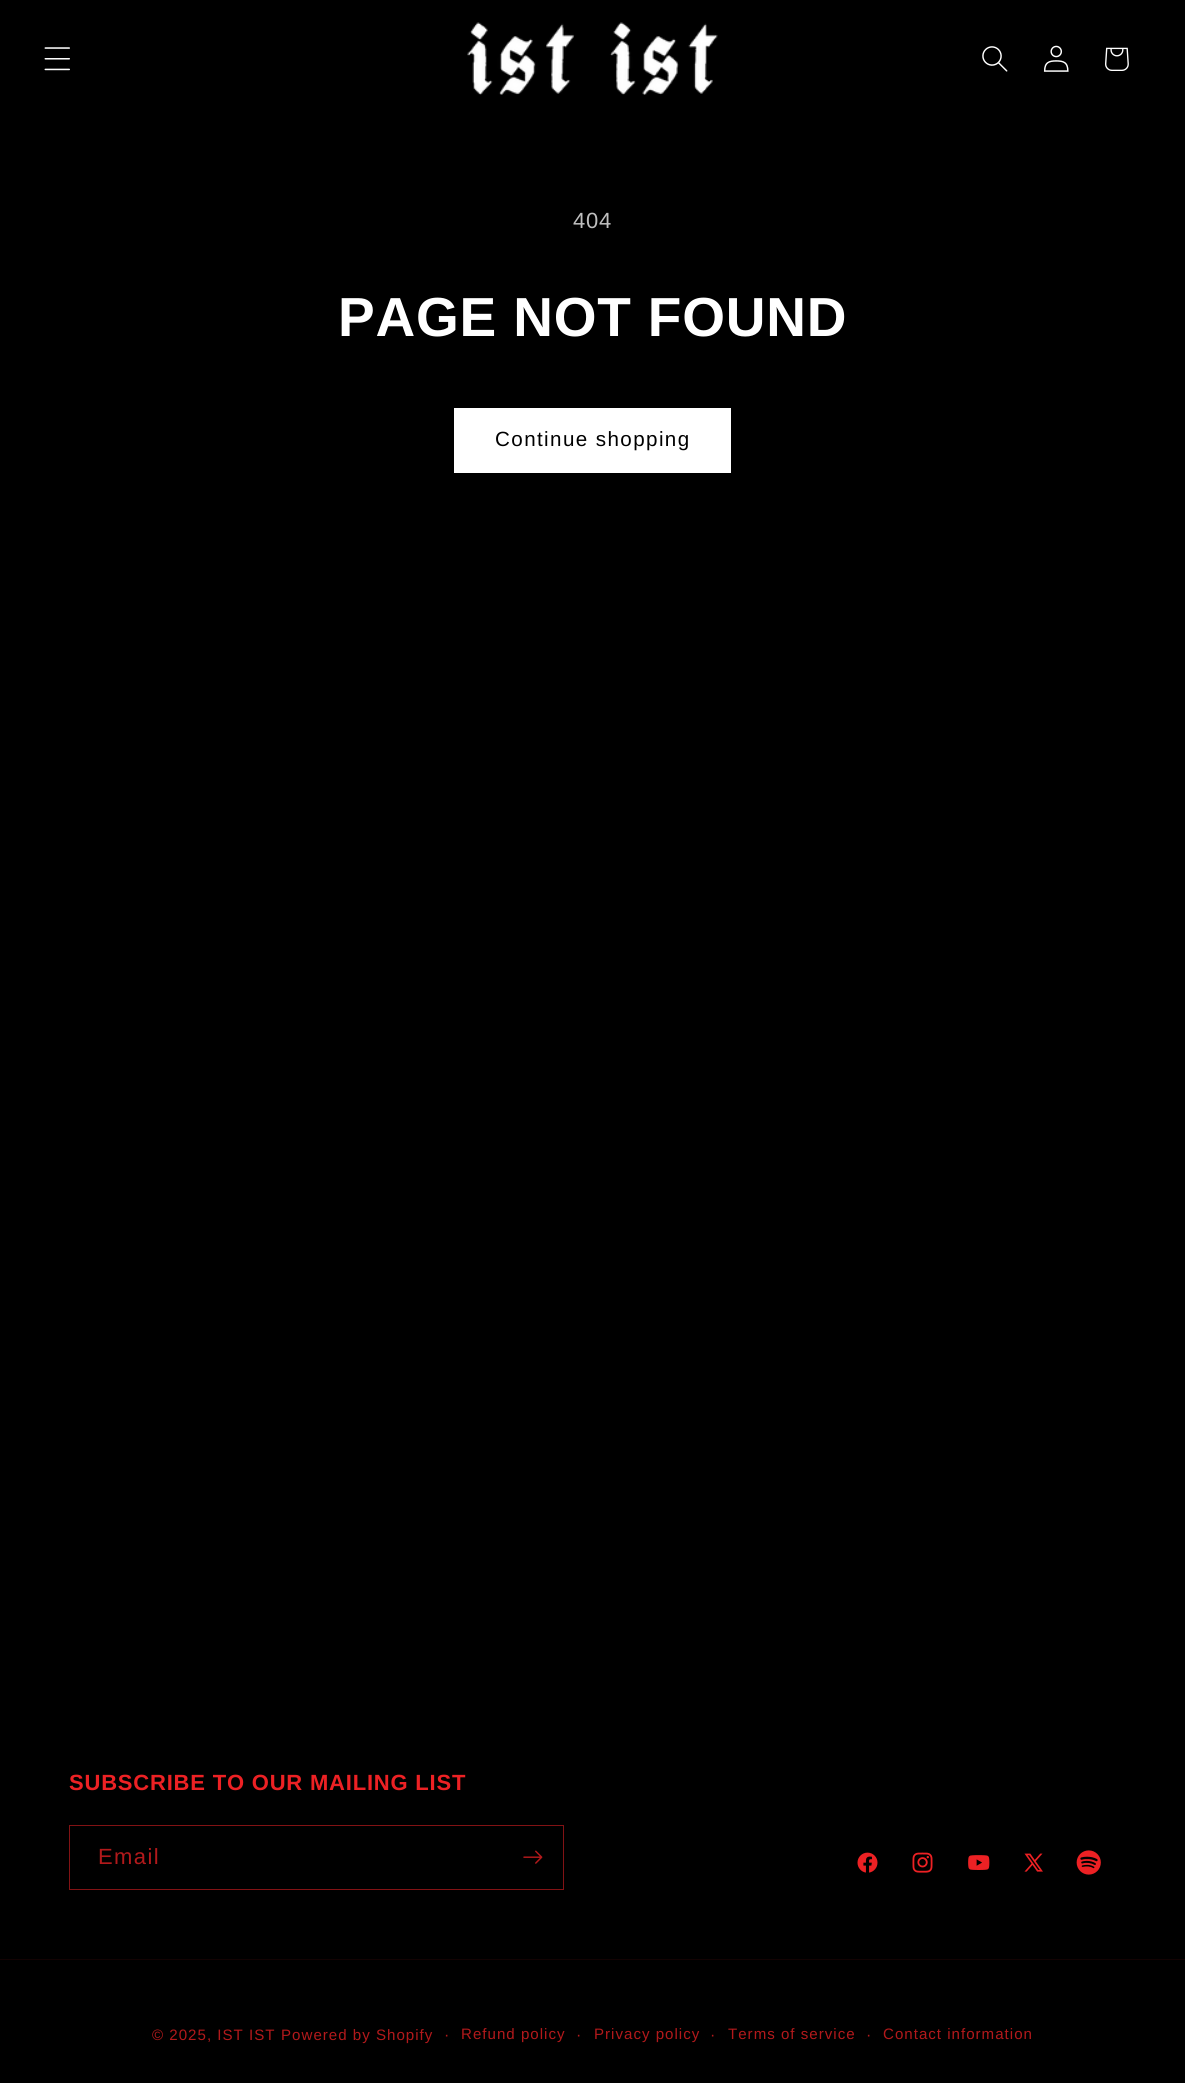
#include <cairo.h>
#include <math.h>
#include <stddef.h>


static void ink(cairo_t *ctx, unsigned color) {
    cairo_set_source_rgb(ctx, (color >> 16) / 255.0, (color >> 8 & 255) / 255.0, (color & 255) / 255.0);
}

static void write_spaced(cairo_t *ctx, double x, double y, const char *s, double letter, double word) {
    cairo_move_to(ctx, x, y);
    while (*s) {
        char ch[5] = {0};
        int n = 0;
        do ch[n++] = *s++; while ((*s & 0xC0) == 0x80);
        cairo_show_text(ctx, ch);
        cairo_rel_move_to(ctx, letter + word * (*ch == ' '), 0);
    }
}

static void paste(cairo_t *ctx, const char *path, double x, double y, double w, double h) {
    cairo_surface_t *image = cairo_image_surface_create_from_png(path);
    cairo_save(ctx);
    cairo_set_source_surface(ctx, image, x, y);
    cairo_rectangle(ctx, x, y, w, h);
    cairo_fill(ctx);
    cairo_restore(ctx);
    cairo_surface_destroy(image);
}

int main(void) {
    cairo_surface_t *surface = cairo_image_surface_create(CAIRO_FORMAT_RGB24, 1185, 2083);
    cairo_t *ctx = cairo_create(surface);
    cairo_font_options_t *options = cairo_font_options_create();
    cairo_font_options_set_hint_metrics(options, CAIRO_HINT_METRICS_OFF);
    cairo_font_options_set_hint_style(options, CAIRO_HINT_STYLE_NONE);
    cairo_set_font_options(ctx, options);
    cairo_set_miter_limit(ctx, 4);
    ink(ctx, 0x000000);
    cairo_paint(ctx);
    paste(ctx, "media/1.png", 44, 47, 26, 24);
    paste(ctx, "media/2.png", 467, 22, 251, 73);
    paste(ctx, "media/3.png", 982, 46, 26, 26);
    paste(ctx, "media/4.png", 1043, 45, 26, 27);
    paste(ctx, "media/5.png", 1105, 47, 24, 24);
    cairo_select_font_face(ctx, "Liberation Sans", CAIRO_FONT_SLANT_NORMAL, CAIRO_FONT_WEIGHT_NORMAL);
    cairo_set_font_size(ctx, 22);
    ink(ctx, 0xBFBFBF);
    write_spaced(ctx, 573, 228, "404", 0.8, 0);
    cairo_select_font_face(ctx, "Liberation Sans", CAIRO_FONT_SLANT_NORMAL, CAIRO_FONT_WEIGHT_BOLD);
    cairo_set_font_size(ctx, 55);
    ink(ctx, 0xFFFFFF);
    write_spaced(ctx, 338, 336, "PAGE NOT FOUND", 0.8, 0);
    cairo_rectangle(ctx, 454, 408, 277, 65);
    cairo_fill(ctx);
    cairo_select_font_face(ctx, "Liberation Sans", CAIRO_FONT_SLANT_NORMAL, CAIRO_FONT_WEIGHT_NORMAL);
    cairo_set_font_size(ctx, 20.6);
    ink(ctx, 0x000000);
    write_spaced(ctx, 495, 446, "Continue shopping", 1.4, 0);
    cairo_select_font_face(ctx, "Liberation Sans", CAIRO_FONT_SLANT_NORMAL, CAIRO_FONT_WEIGHT_BOLD);
    cairo_set_font_size(ctx, 22);
    ink(ctx, 0xED2124);
    write_spaced(ctx, 69, 1790, "SUBSCRIBE TO OUR MAILING LIST", 0.8, 0);
    cairo_rectangle(ctx, 69.5, 1825.5, 494, 64);
    ink(ctx, 0x821214);
    cairo_set_line_width(ctx, 1);
    cairo_stroke(ctx);
    cairo_select_font_face(ctx, "Liberation Sans", CAIRO_FONT_SLANT_NORMAL, CAIRO_FONT_WEIGHT_NORMAL);
    ink(ctx, 0xB2191B);
    write_spaced(ctx, 98, 1864, "Email", 1.4, 0);
    paste(ctx, "media/6.png", 523, 1850, 20, 14);
    paste(ctx, "media/7.png", 857, 1852, 21, 21);
    paste(ctx, "media/8.png", 912, 1852, 21, 21);
    paste(ctx, "media/9.png", 968, 1855, 22, 15);
    paste(ctx, "media/10.png", 1024, 1853, 19, 19);
    paste(ctx, "media/11.png", 1076, 1850, 25, 25);
    ink(ctx, 0x130303);
    cairo_rectangle(ctx, 0, 1959, 1185, 1);
    cairo_fill(ctx);
    cairo_set_font_size(ctx, 15.1);
    ink(ctx, 0xB2191B);
    write_spaced(ctx, 152, 2040, "© 2025, IST IST", 1, 0);
    write_spaced(ctx, 281, 2040, "Powered by Shopify", 1, 0);
    cairo_set_font_size(ctx, 16);
    write_spaced(ctx, 444, 2040, "·", 1, 0);
    cairo_set_font_size(ctx, 15.1);
    write_spaced(ctx, 461, 2039, "Refund policy", 1, 0);
    cairo_set_font_size(ctx, 16);
    write_spaced(ctx, 576, 2040, "·", 1, 0);
    cairo_set_font_size(ctx, 15.1);
    write_spaced(ctx, 594, 2039, "Privacy policy", 1, 0);
    cairo_set_font_size(ctx, 16);
    write_spaced(ctx, 710, 2040, "·", 1, 0);
    cairo_set_font_size(ctx, 15.1);
    write_spaced(ctx, 728, 2039, "Terms of service", 1, 0);
    cairo_set_font_size(ctx, 16);
    write_spaced(ctx, 866, 2040, "·", 1, 0);
    cairo_set_font_size(ctx, 15.1);
    write_spaced(ctx, 883, 2039, "Contact information", 1, 0);
    cairo_surface_write_to_png(surface, "image.png");
    cairo_font_options_destroy(options);
    cairo_destroy(ctx);
    cairo_surface_destroy(surface);
    return 0;
}
